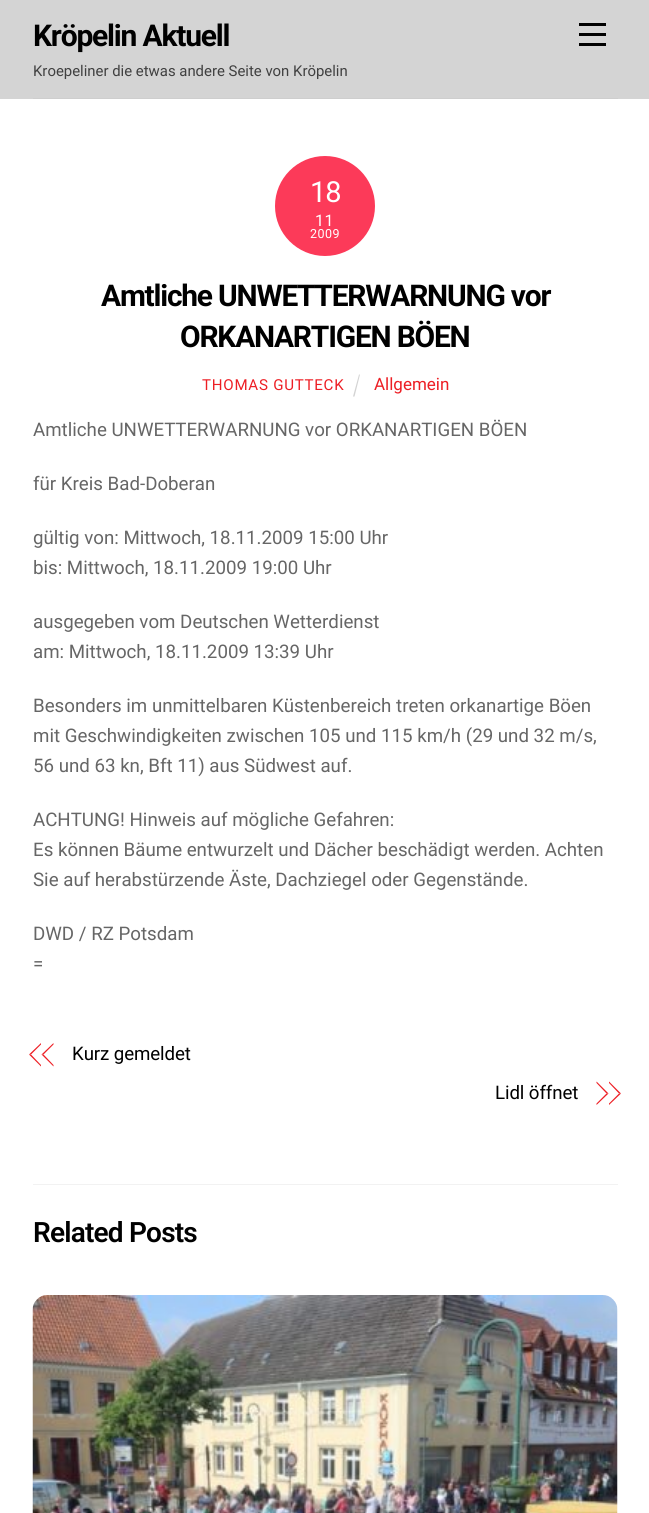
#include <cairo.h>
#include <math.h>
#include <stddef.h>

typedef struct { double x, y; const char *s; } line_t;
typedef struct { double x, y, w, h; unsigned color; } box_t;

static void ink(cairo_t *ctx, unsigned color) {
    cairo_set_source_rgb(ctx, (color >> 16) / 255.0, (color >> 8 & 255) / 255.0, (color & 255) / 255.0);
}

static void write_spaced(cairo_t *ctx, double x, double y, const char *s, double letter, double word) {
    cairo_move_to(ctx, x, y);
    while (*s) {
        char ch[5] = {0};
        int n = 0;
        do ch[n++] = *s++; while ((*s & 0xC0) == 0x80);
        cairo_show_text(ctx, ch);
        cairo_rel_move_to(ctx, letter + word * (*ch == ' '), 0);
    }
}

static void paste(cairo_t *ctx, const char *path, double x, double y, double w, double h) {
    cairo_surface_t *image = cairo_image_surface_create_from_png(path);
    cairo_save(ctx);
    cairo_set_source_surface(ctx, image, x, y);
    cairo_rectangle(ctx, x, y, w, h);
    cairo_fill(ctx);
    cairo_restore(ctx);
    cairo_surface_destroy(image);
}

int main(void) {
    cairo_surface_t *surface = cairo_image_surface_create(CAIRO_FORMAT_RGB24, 649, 1513);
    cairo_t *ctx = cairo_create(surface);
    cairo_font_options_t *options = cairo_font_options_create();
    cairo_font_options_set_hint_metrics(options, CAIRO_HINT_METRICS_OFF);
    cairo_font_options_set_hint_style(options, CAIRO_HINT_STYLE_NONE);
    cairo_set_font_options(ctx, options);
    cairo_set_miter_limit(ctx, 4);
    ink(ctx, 0xFFFFFF);
    cairo_paint(ctx);
    ink(ctx, 0xD4D4D4);
    cairo_rectangle(ctx, 0, 0, 649, 99);
    cairo_fill(ctx);
    ink(ctx, 0xCECECE);
    cairo_rectangle(ctx, 33, 98, 585, 1);
    cairo_fill(ctx);
    cairo_select_font_face(ctx, "Roboto", CAIRO_FONT_SLANT_NORMAL, CAIRO_FONT_WEIGHT_BOLD);
    cairo_set_font_size(ctx, 30);
    ink(ctx, 0x000000);
    write_spaced(ctx, 33, 46, "Kröpelin Aktuell", -1.2, 0);
    cairo_select_font_face(ctx, "Roboto", CAIRO_FONT_SLANT_NORMAL, CAIRO_FONT_WEIGHT_NORMAL);
    cairo_set_font_size(ctx, 14.9);
    ink(ctx, 0x404040);
    cairo_move_to(ctx, 33, 76);
    cairo_show_text(ctx, "Kroepeliner die etwas andere Seite von Kröpelin");
    {
        static const box_t items[] = {
            {579, 43, 27, 3, 0x000000},
            {579, 23, 27, 3, 0x000000},
            {579, 33, 27, 3, 0x000000},
        };
        for (size_t i = 0; i < sizeof items / sizeof *items; i++) {
            ink(ctx, items[i].color);
            cairo_rectangle(ctx, items[i].x, items[i].y, items[i].w, items[i].h);
            cairo_fill(ctx);
        }
    }
    ink(ctx, 0xFC3A59);
    cairo_new_path(ctx);
    cairo_arc(ctx, 325, 206, 50, 0, 2 * M_PI);
    cairo_fill(ctx);
    cairo_set_font_size(ctx, 29);
    ink(ctx, 0xFFFFFF);
    write_spaced(ctx, 310, 202, "18", -1, 0);
    cairo_set_font_size(ctx, 16);
    write_spaced(ctx, 315, 226, "11", 0.5, 0);
    cairo_set_font_size(ctx, 12.5);
    write_spaced(ctx, 310, 238, "2009", 0.5, 0);
    cairo_select_font_face(ctx, "Roboto", CAIRO_FONT_SLANT_NORMAL, CAIRO_FONT_WEIGHT_BOLD);
    cairo_set_font_size(ctx, 29.9);
    ink(ctx, 0x000000);
    write_spaced(ctx, 101, 306, "Amtliche UNWETTERWARNUNG vor", -1.2, 0);
    write_spaced(ctx, 180, 347, "ORKANARTIGEN BÖEN", -1.2, 0);
    cairo_select_font_face(ctx, "Roboto", CAIRO_FONT_SLANT_NORMAL, CAIRO_FONT_WEIGHT_NORMAL);
    cairo_set_font_size(ctx, 15.1);
    ink(ctx, 0xED1E24);
    write_spaced(ctx, 202, 390, "THOMAS GUTTECK", 0.75, 0);
    ink(ctx, 0xD3D3D3);
    cairo_new_path(ctx);
    cairo_move_to(ctx, 359, 374.5);
    cairo_line_to(ctx, 360, 374.5);
    cairo_line_to(ctx, 354.5, 396.5);
    cairo_line_to(ctx, 353, 396.5);
    cairo_close_path(ctx);
    cairo_fill(ctx);
    cairo_set_font_size(ctx, 17);
    ink(ctx, 0xED1E24);
    cairo_move_to(ctx, 374, 390);
    cairo_show_text(ctx, "Allgemein");
    cairo_set_font_size(ctx, 18.7);
    ink(ctx, 0x666666);
    {
        static const line_t items[] = {
            {33, 436, "Amtliche UNWETTERWARNUNG vor ORKANARTIGEN BÖEN"},
            {33, 490, "für Kreis Bad-Doberan"},
            {33, 544, "gültig von: Mittwoch, 18.11.2009 15:00 Uhr"},
            {33, 574, "bis: Mittwoch, 18.11.2009 19:00 Uhr"},
            {33, 628, "ausgegeben vom Deutschen Wetterdienst"},
            {33, 658, "am: Mittwoch, 18.11.2009 13:39 Uhr"},
            {33, 712, "Besonders im unmittelbaren Küstenbereich treten orkanartige Böen"},
            {33, 742, "mit Geschwindigkeiten zwischen 105 und 115 km/h (29 und 32 m/s,"},
            {33, 772, "56 und 63 kn, Bft 11) aus Südwest auf."},
            {33, 826, "ACHTUNG! Hinweis auf mögliche Gefahren:"},
            {33, 856, "Es können Bäume entwurzelt und Dächer beschädigt werden. Achten"},
            {33, 886, "Sie auf herabstürzende Äste, Dachziegel oder Gegenstände."},
            {33, 940, "DWD / RZ Potsdam"},
            {33, 970, "="},
        };
        for (size_t i = 0; i < sizeof items / sizeof *items; i++) {
            cairo_move_to(ctx, items[i].x, items[i].y);
            cairo_show_text(ctx, items[i].s);
        }
    }
    ink(ctx, 0xED1E24);
    cairo_new_path(ctx);
    cairo_move_to(ctx, 29, 1054.5);
    cairo_line_to(ctx, 41, 1043);
    cairo_line_to(ctx, 41, 1044.5);
    cairo_line_to(ctx, 31, 1054.5);
    cairo_close_path(ctx);
    cairo_fill(ctx);
    cairo_new_path(ctx);
    cairo_move_to(ctx, 41, 1066.5);
    cairo_line_to(ctx, 29, 1054.5);
    cairo_line_to(ctx, 31, 1054.5);
    cairo_line_to(ctx, 41, 1065);
    cairo_close_path(ctx);
    cairo_move_to(ctx, 41.5, 1054.5);
    cairo_line_to(ctx, 53.5, 1043);
    cairo_line_to(ctx, 53.5, 1044.5);
    cairo_line_to(ctx, 43.5, 1054.5);
    cairo_close_path(ctx);
    cairo_fill(ctx);
    cairo_new_path(ctx);
    cairo_move_to(ctx, 53.5, 1066.5);
    cairo_line_to(ctx, 41.5, 1054.5);
    cairo_line_to(ctx, 43.5, 1054.5);
    cairo_line_to(ctx, 53.5, 1065);
    cairo_close_path(ctx);
    cairo_fill(ctx);
    ink(ctx, 0x000000);
    write_spaced(ctx, 72, 1060, "Kurz gemeldet", -0.1, 0);
    write_spaced(ctx, 495, 1099, "Lidl öffnet", -0.1, 0);
    ink(ctx, 0xED1E24);
    cairo_new_path(ctx);
    cairo_move_to(ctx, 609, 1081.5);
    cairo_line_to(ctx, 621, 1093.5);
    cairo_line_to(ctx, 619, 1093.5);
    cairo_line_to(ctx, 609, 1083);
    cairo_close_path(ctx);
    cairo_fill(ctx);
    cairo_new_path(ctx);
    cairo_move_to(ctx, 621, 1093.5);
    cairo_line_to(ctx, 609, 1105);
    cairo_line_to(ctx, 609, 1103.5);
    cairo_line_to(ctx, 619, 1093.5);
    cairo_close_path(ctx);
    cairo_move_to(ctx, 596.5, 1081.5);
    cairo_line_to(ctx, 608.5, 1093.5);
    cairo_line_to(ctx, 606.5, 1093.5);
    cairo_line_to(ctx, 596.5, 1083);
    cairo_close_path(ctx);
    cairo_fill(ctx);
    cairo_new_path(ctx);
    cairo_move_to(ctx, 608.5, 1093.5);
    cairo_line_to(ctx, 596.5, 1105);
    cairo_line_to(ctx, 596.5, 1103.5);
    cairo_line_to(ctx, 606.5, 1093.5);
    cairo_close_path(ctx);
    cairo_fill(ctx);
    ink(ctx, 0xF2F2F2);
    cairo_rectangle(ctx, 33, 1184, 585, 1);
    cairo_fill(ctx);
    cairo_select_font_face(ctx, "Roboto SemiBold", CAIRO_FONT_SLANT_NORMAL, CAIRO_FONT_WEIGHT_NORMAL);
    cairo_set_font_size(ctx, 28);
    ink(ctx, 0x000000);
    write_spaced(ctx, 33, 1242, "Related Posts", -0.8, 0);
    paste(ctx, "media/1.png", 32, 1295, 586, 218);
    cairo_surface_write_to_png(surface, "image.png");
    cairo_font_options_destroy(options);
    cairo_destroy(ctx);
    cairo_surface_destroy(surface);
    return 0;
}
